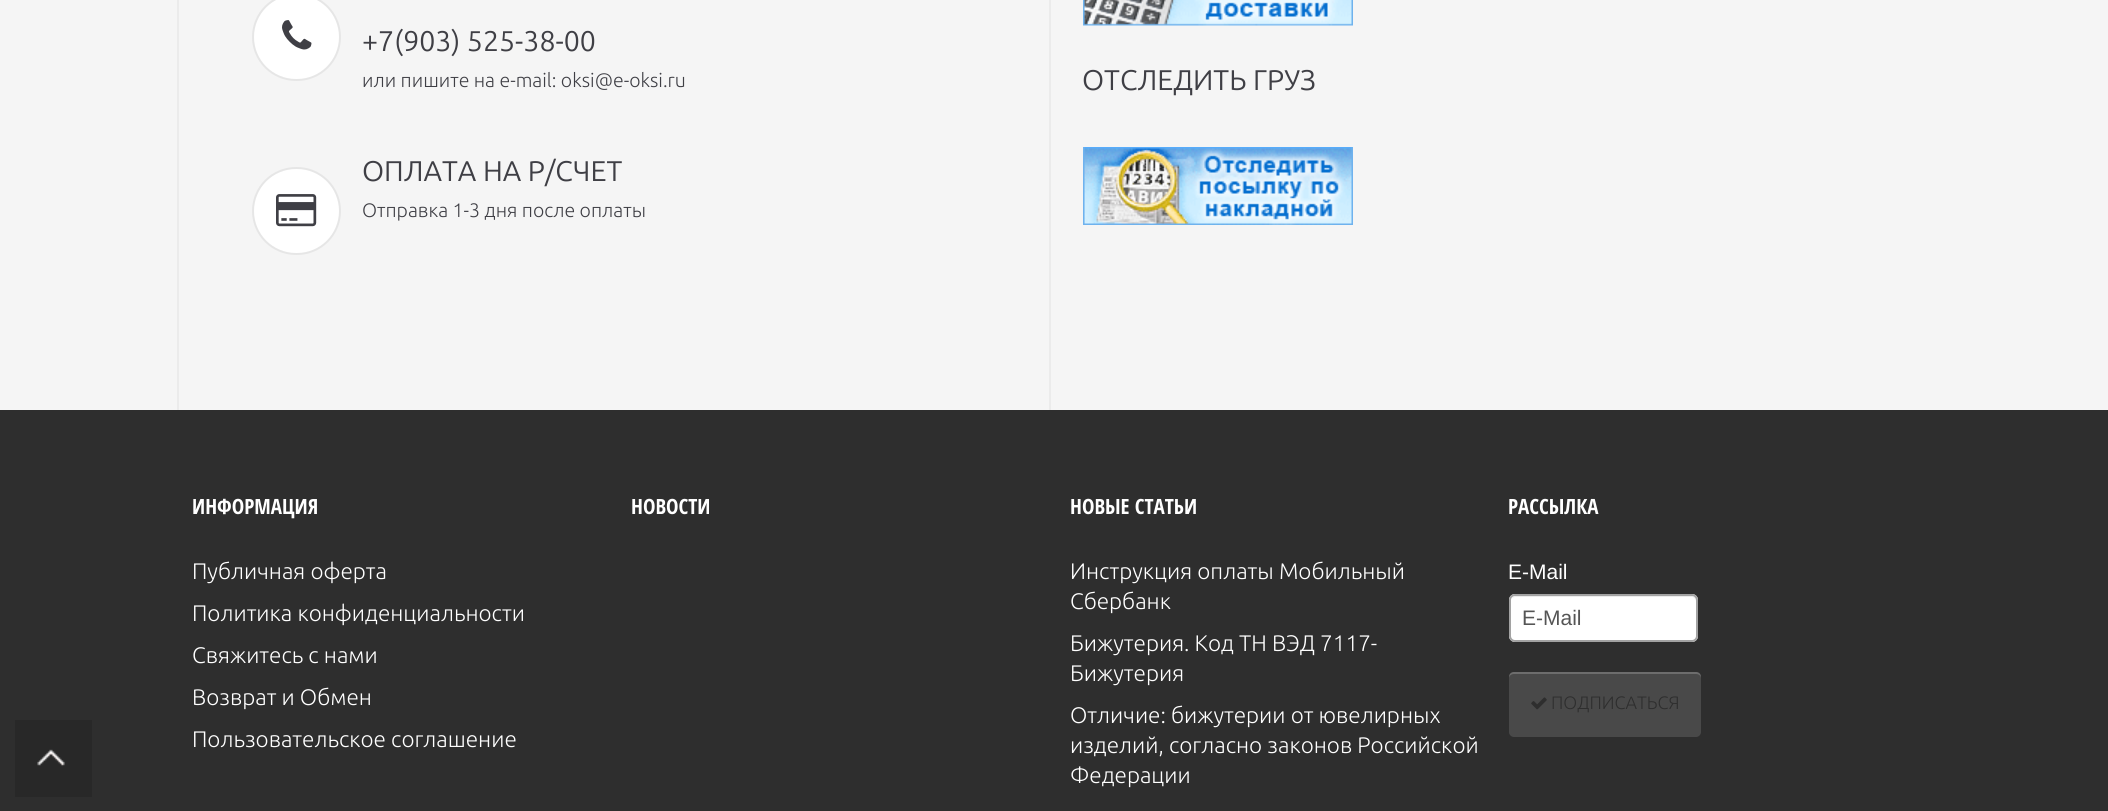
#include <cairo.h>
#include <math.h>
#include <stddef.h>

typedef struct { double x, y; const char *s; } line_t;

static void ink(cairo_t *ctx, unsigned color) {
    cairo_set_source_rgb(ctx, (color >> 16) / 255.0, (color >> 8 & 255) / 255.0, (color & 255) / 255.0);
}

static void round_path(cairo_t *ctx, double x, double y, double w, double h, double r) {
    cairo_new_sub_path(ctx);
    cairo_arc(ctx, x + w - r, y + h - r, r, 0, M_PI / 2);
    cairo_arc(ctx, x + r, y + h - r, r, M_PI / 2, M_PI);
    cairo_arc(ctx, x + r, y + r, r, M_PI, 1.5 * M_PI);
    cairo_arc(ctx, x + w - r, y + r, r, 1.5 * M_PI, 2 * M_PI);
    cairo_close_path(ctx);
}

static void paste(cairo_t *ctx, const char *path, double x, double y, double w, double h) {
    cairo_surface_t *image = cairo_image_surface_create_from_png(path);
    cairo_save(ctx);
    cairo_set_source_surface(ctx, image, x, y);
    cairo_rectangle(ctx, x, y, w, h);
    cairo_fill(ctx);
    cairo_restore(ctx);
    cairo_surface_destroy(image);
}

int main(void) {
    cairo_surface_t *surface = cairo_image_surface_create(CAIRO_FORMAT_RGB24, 2108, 811);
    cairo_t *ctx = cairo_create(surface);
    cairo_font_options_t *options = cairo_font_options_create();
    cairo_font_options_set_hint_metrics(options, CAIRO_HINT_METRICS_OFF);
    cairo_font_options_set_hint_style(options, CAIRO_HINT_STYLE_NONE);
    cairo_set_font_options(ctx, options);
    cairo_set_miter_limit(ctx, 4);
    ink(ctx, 0xF5F5F5);
    cairo_paint(ctx);
    ink(ctx, 0x2E2E2E);
    cairo_rectangle(ctx, 0, 410, 2108, 401);
    cairo_fill(ctx);
    paste(ctx, "media/1.png", 15, 720, 77, 77);
    ink(ctx, 0xEBEBEB);
    cairo_rectangle(ctx, 177, 0, 2, 410);
    cairo_fill(ctx);
    ink(ctx, 0xFFFFFF);
    round_path(ctx, 253, -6, 87, 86, 43);
    cairo_fill_preserve(ctx);
    ink(ctx, 0xE6E6E6);
    cairo_stroke(ctx);
    paste(ctx, "media/2.png", 282, 20, 30, 30);
    cairo_select_font_face(ctx, "Ubuntu", CAIRO_FONT_SLANT_NORMAL, CAIRO_FONT_WEIGHT_NORMAL);
    cairo_set_font_size(ctx, 28.5);
    ink(ctx, 0x3F3F45);
    cairo_move_to(ctx, 362, 51);
    cairo_show_text(ctx, "+7(903) 525-38-00");
    cairo_select_font_face(ctx, "Ubuntu Light", CAIRO_FONT_SLANT_NORMAL, CAIRO_FONT_WEIGHT_NORMAL);
    cairo_set_font_size(ctx, 19.5);
    cairo_move_to(ctx, 362, 87);
    cairo_show_text(ctx, "или пишите на e-mail: oksi@e-oksi.ru");
    ink(ctx, 0xFFFFFF);
    round_path(ctx, 253, 168, 87, 86, 43);
    cairo_fill_preserve(ctx);
    ink(ctx, 0xE6E6E6);
    cairo_stroke(ctx);
    paste(ctx, "media/3.png", 276, 194, 41, 33);
    cairo_select_font_face(ctx, "Ubuntu", CAIRO_FONT_SLANT_NORMAL, CAIRO_FONT_WEIGHT_NORMAL);
    cairo_set_font_size(ctx, 28.5);
    ink(ctx, 0x3F3F45);
    cairo_move_to(ctx, 362, 181);
    cairo_show_text(ctx, "ОПЛАТА НА Р/СЧЕТ");
    cairo_select_font_face(ctx, "Ubuntu Light", CAIRO_FONT_SLANT_NORMAL, CAIRO_FONT_WEIGHT_NORMAL);
    cairo_set_font_size(ctx, 19.5);
    cairo_move_to(ctx, 362, 217);
    cairo_show_text(ctx, "Отправка 1-3 дня после оплаты");
    ink(ctx, 0xEBEBEB);
    cairo_rectangle(ctx, 1049, 0, 2, 410);
    cairo_fill(ctx);
    paste(ctx, "media/4.png", 1083, 0, 270, 26);
    cairo_select_font_face(ctx, "Ubuntu", CAIRO_FONT_SLANT_NORMAL, CAIRO_FONT_WEIGHT_NORMAL);
    cairo_set_font_size(ctx, 28.5);
    ink(ctx, 0x3F3F45);
    cairo_move_to(ctx, 1082, 90);
    cairo_show_text(ctx, "ОТСЛЕДИТЬ ГРУЗ");
    paste(ctx, "media/5.png", 1083, 147, 270, 78);
    cairo_select_font_face(ctx, "Open Sans Condensed", CAIRO_FONT_SLANT_NORMAL, CAIRO_FONT_WEIGHT_BOLD);
    cairo_set_font_size(ctx, 21);
    ink(ctx, 0xFFFFFF);
    cairo_move_to(ctx, 192, 514);
    cairo_show_text(ctx, "ИНФОРМАЦИЯ");
    cairo_select_font_face(ctx, "Ubuntu Light", CAIRO_FONT_SLANT_NORMAL, CAIRO_FONT_WEIGHT_NORMAL);
    cairo_set_font_size(ctx, 22.5);
    {
        static const line_t items[] = {
            {192, 579, "Публичная оферта"},
            {192, 621, "Политика конфиденциальности"},
            {192, 663, "Свяжитесь с нами"},
            {192, 705, "Возврат и Обмен"},
            {192, 747, "Пользовательское соглашение"},
        };
        for (size_t i = 0; i < sizeof items / sizeof *items; i++) {
            cairo_move_to(ctx, items[i].x, items[i].y);
            cairo_show_text(ctx, items[i].s);
        }
    }
    cairo_select_font_face(ctx, "Open Sans Condensed", CAIRO_FONT_SLANT_NORMAL, CAIRO_FONT_WEIGHT_BOLD);
    cairo_set_font_size(ctx, 21);
    cairo_move_to(ctx, 631, 514);
    cairo_show_text(ctx, "НОВОСТИ");
    cairo_move_to(ctx, 1070, 514);
    cairo_show_text(ctx, "НОВЫЕ СТАТЬИ");
    cairo_select_font_face(ctx, "Ubuntu Light", CAIRO_FONT_SLANT_NORMAL, CAIRO_FONT_WEIGHT_NORMAL);
    cairo_set_font_size(ctx, 22.5);
    {
        static const line_t items[] = {
            {1070, 579, "Инструкция оплаты Мобильный"},
            {1070, 609, "Сбербанк"},
            {1070, 651, "Бижутерия. Код ТН ВЭД 7117-"},
            {1070, 681, "Бижутерия"},
            {1070, 723, "Отличие: бижутерии от ювелирных"},
            {1070, 753, "изделий, согласно законов Российской"},
            {1070, 783, "Федерации"},
        };
        for (size_t i = 0; i < sizeof items / sizeof *items; i++) {
            cairo_move_to(ctx, items[i].x, items[i].y);
            cairo_show_text(ctx, items[i].s);
        }
    }
    cairo_select_font_face(ctx, "Open Sans Condensed", CAIRO_FONT_SLANT_NORMAL, CAIRO_FONT_WEIGHT_BOLD);
    cairo_set_font_size(ctx, 21);
    cairo_move_to(ctx, 1508, 514);
    cairo_show_text(ctx, "РАССЫЛКА");
    cairo_select_font_face(ctx, "Liberation Sans", CAIRO_FONT_SLANT_NORMAL, CAIRO_FONT_WEIGHT_NORMAL);
    cairo_move_to(ctx, 1508, 579);
    cairo_show_text(ctx, "E-Mail");
    round_path(ctx, 1509, 594, 189, 48, 6);
    cairo_fill(ctx);
    ink(ctx, 0xECECEC);
    cairo_new_path(ctx);
    cairo_move_to(ctx, 1515, 597);
    cairo_line_to(ctx, 1692, 597);
    cairo_curve_to(ctx, 1694, 597, 1696, 599, 1696, 602);
    cairo_line_to(ctx, 1696, 639);
    cairo_curve_to(ctx, 1697, 638, 1697, 637, 1697, 636);
    cairo_line_to(ctx, 1697, 601);
    cairo_curve_to(ctx, 1697, 598, 1695, 596, 1692, 596);
    cairo_line_to(ctx, 1516, 596);
    cairo_curve_to(ctx, 1514, 596, 1513, 597, 1512, 598);
    cairo_close_path(ctx);
    cairo_fill(ctx);
    round_path(ctx, 1510, 595, 187, 46, 5);
    ink(ctx, 0xA2A2A2);
    cairo_stroke(ctx);
    ink(ctx, 0x555555);
    cairo_move_to(ctx, 1522, 625);
    cairo_show_text(ctx, "E-Mail");
    ink(ctx, 0x494949);
    round_path(ctx, 1509, 672, 192, 65, 5);
    cairo_fill(ctx);
    cairo_set_source_rgba(ctx, 1, 1, 1, 0.2);
    cairo_new_path(ctx);
    cairo_move_to(ctx, 1514, 674);
    cairo_line_to(ctx, 1696, 674);
    cairo_curve_to(ctx, 1699, 674, 1701, 676, 1701, 678);
    cairo_line_to(ctx, 1701, 677);
    cairo_curve_to(ctx, 1701, 674, 1699, 672, 1696, 672);
    cairo_line_to(ctx, 1514, 672);
    cairo_curve_to(ctx, 1511, 672, 1509, 674, 1509, 677);
    cairo_line_to(ctx, 1509, 678);
    cairo_curve_to(ctx, 1509, 676, 1511, 674, 1514, 674);
    cairo_close_path(ctx);
    cairo_fill(ctx);
    paste(ctx, "media/6.png", 1531, 697, 16, 13);
    cairo_select_font_face(ctx, "Ubuntu Light", CAIRO_FONT_SLANT_NORMAL, CAIRO_FONT_WEIGHT_NORMAL);
    cairo_set_font_size(ctx, 18);
    ink(ctx, 0x2E2E2E);
    cairo_move_to(ctx, 1551, 709);
    cairo_show_text(ctx, "ПОДПИСАТЬСЯ");
    cairo_surface_write_to_png(surface, "image.png");
    cairo_font_options_destroy(options);
    cairo_destroy(ctx);
    cairo_surface_destroy(surface);
    return 0;
}
